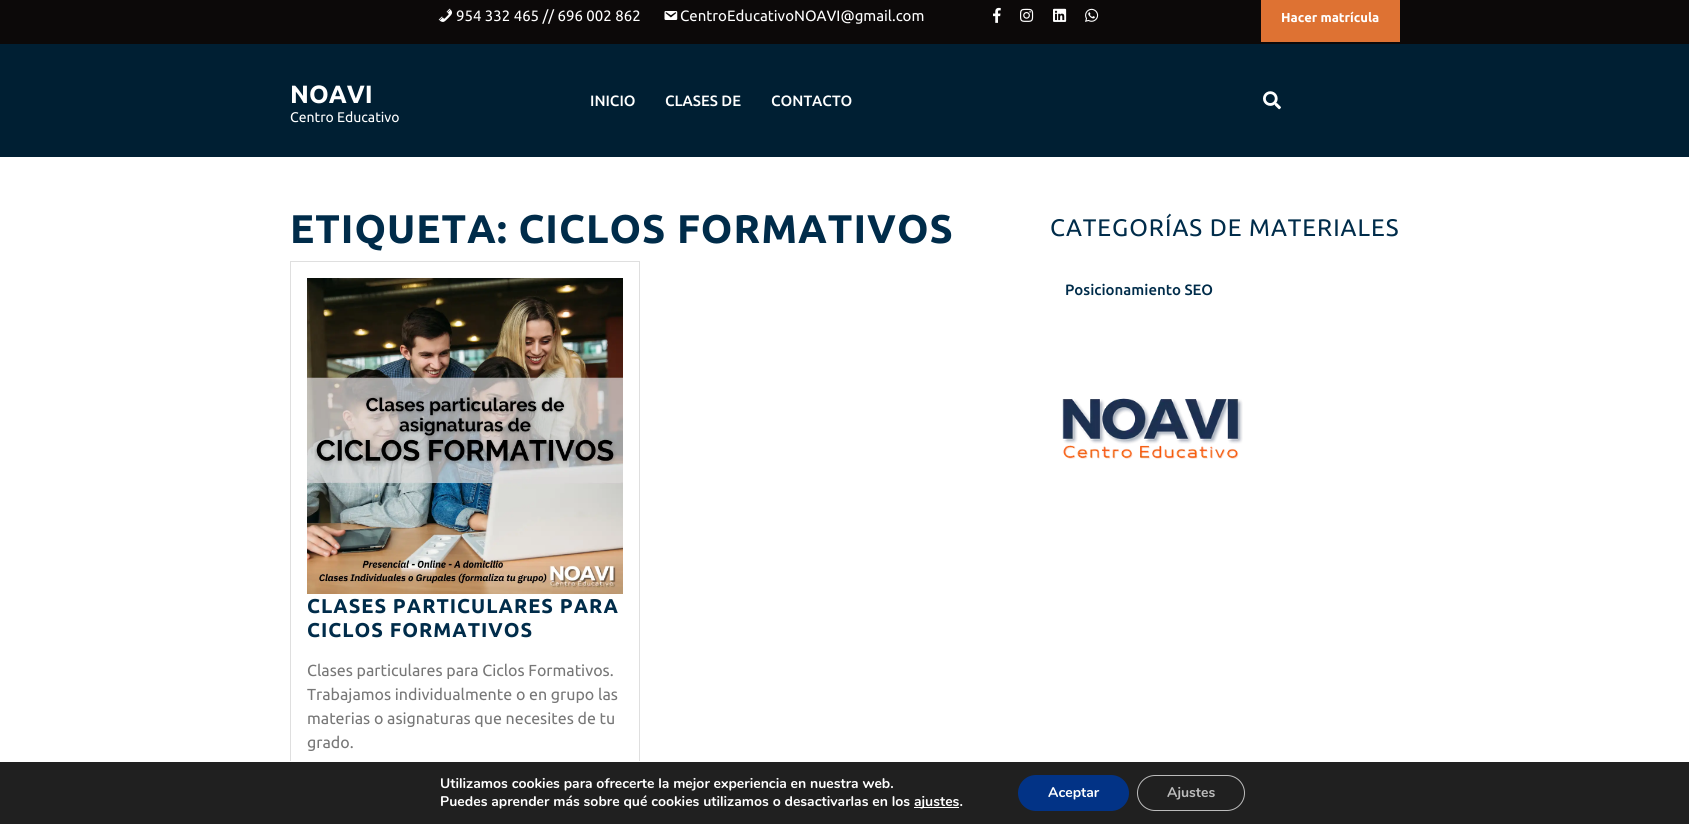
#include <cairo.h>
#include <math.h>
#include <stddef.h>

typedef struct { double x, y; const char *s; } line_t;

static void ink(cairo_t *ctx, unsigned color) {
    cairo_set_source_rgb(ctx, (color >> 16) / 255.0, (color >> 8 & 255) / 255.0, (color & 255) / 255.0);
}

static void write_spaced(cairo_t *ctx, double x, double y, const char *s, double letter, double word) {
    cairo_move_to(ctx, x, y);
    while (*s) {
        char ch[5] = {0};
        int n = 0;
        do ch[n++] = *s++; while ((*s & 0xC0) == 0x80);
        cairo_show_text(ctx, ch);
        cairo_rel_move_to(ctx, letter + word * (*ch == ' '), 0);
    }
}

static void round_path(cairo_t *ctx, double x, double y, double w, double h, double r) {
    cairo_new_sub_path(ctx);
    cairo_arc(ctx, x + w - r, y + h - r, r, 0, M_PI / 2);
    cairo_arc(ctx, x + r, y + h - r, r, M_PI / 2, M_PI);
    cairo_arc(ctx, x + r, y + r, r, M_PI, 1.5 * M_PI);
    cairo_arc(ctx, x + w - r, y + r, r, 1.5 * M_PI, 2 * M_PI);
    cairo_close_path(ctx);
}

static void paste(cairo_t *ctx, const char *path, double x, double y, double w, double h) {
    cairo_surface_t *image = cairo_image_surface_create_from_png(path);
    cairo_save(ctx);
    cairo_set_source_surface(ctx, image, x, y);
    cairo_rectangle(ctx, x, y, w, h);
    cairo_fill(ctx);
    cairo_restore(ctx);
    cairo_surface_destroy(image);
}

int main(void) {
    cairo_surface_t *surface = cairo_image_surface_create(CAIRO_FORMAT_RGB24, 1689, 824);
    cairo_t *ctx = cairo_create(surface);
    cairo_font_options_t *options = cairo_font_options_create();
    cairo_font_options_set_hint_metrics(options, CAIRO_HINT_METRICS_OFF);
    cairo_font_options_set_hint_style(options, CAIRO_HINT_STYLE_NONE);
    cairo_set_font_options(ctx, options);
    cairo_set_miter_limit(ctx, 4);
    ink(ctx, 0xFFFFFF);
    cairo_paint(ctx);
    ink(ctx, 0x0C0909);
    cairo_rectangle(ctx, 0, 0, 1689, 44);
    cairo_fill(ctx);
    paste(ctx, "media/1.png", 438, 8, 14, 14);
    cairo_select_font_face(ctx, "Ubuntu", CAIRO_FONT_SLANT_NORMAL, CAIRO_FONT_WEIGHT_NORMAL);
    cairo_set_font_size(ctx, 15);
    ink(ctx, 0xFFFFFF);
    cairo_move_to(ctx, 456, 21);
    cairo_show_text(ctx, "954 332 465 // 696 002 862");
    paste(ctx, "media/2.png", 664, 11, 14, 9);
    cairo_move_to(ctx, 680, 21);
    cairo_show_text(ctx, "CentroEducativoNOAVI@gmail.com");
    paste(ctx, "media/3.png", 993, 7, 8, 16);
    paste(ctx, "media/4.png", 1020, 8, 14, 14);
    paste(ctx, "media/5.png", 1053, 8, 14, 14);
    paste(ctx, "media/6.png", 1085, 8, 14, 14);
    ink(ctx, 0xDE7233);
    cairo_rectangle(ctx, 1261, 0, 139, 42);
    cairo_fill(ctx);
    cairo_select_font_face(ctx, "Ubuntu", CAIRO_FONT_SLANT_NORMAL, CAIRO_FONT_WEIGHT_BOLD);
    cairo_set_font_size(ctx, 13);
    ink(ctx, 0xFFFFFF);
    cairo_move_to(ctx, 1281, 22);
    cairo_show_text(ctx, "Hacer matrícula");
    ink(ctx, 0x001F33);
    cairo_rectangle(ctx, 0, 44, 1689, 113);
    cairo_fill(ctx);
    cairo_set_font_size(ctx, 25);
    ink(ctx, 0xFFFFFF);
    cairo_move_to(ctx, 290, 103);
    cairo_show_text(ctx, "NOAVI");
    cairo_select_font_face(ctx, "Ubuntu", CAIRO_FONT_SLANT_NORMAL, CAIRO_FONT_WEIGHT_NORMAL);
    cairo_set_font_size(ctx, 14);
    cairo_move_to(ctx, 290, 122);
    cairo_show_text(ctx, "Centro Educativo");
    cairo_select_font_face(ctx, "Ubuntu Medium", CAIRO_FONT_SLANT_NORMAL, CAIRO_FONT_WEIGHT_NORMAL);
    cairo_set_font_size(ctx, 15);
    {
        static const line_t items[] = {
            {590, 106, "INICIO"},
            {665, 106, "CLASES DE"},
            {771, 106, "CONTACTO"},
        };
        for (size_t i = 0; i < sizeof items / sizeof *items; i++) {
            cairo_move_to(ctx, items[i].x, items[i].y);
            cairo_show_text(ctx, items[i].s);
        }
    }
    paste(ctx, "media/7.png", 1263, 91, 18, 19);
    cairo_select_font_face(ctx, "Ubuntu", CAIRO_FONT_SLANT_NORMAL, CAIRO_FONT_WEIGHT_BOLD);
    cairo_set_font_size(ctx, 40);
    ink(ctx, 0x002C4A);
    write_spaced(ctx, 290, 243, "ETIQUETA: CICLOS FORMATIVOS", 1, 0);
    cairo_rectangle(ctx, 290.5, 261.5, 349, 525);
    ink(ctx, 0xDFDFDF);
    cairo_set_line_width(ctx, 1);
    cairo_stroke(ctx);
    paste(ctx, "media/8.png", 307, 278, 316, 316);
    cairo_set_font_size(ctx, 20);
    ink(ctx, 0x002C4A);
    write_spaced(ctx, 307, 613, "CLASES PARTICULARES PARA", 1, 0);
    write_spaced(ctx, 307, 637, "CICLOS FORMATIVOS", 1, 0);
    cairo_select_font_face(ctx, "Ubuntu", CAIRO_FONT_SLANT_NORMAL, CAIRO_FONT_WEIGHT_NORMAL);
    cairo_set_font_size(ctx, 16);
    ink(ctx, 0x777777);
    {
        static const line_t items[] = {
            {307, 676, "Clases particulares para Ciclos Formativos."},
            {307, 700, "Trabajamos individualmente o en grupo las"},
            {307, 724, "materias o asignaturas que necesites de tu"},
            {307, 748, "grado."},
        };
        for (size_t i = 0; i < sizeof items / sizeof *items; i++) {
            cairo_move_to(ctx, items[i].x, items[i].y);
            cairo_show_text(ctx, items[i].s);
        }
    }
    cairo_set_font_size(ctx, 24);
    ink(ctx, 0x002C4A);
    write_spaced(ctx, 1050, 236, "CATEGORÍAS DE MATERIALES", 1, 0);
    cairo_select_font_face(ctx, "Ubuntu Medium", CAIRO_FONT_SLANT_NORMAL, CAIRO_FONT_WEIGHT_NORMAL);
    cairo_set_font_size(ctx, 15);
    cairo_move_to(ctx, 1065, 295);
    cairo_show_text(ctx, "Posicionamiento SEO");
    paste(ctx, "media/9.png", 1062, 398, 181, 61);
    ink(ctx, 0x202020);
    cairo_rectangle(ctx, 0, 762, 1689, 62);
    cairo_fill(ctx);
    ink(ctx, 0xFFFFFF);
    cairo_rectangle(ctx, 290, 761, 350, 1);
    cairo_fill(ctx);
    cairo_select_font_face(ctx, "Nunito", CAIRO_FONT_SLANT_NORMAL, CAIRO_FONT_WEIGHT_BOLD);
    cairo_set_font_size(ctx, 14);
    cairo_move_to(ctx, 440, 788);
    cairo_show_text(ctx, "Utilizamos cookies para ofrecerte la mejor experiencia en nuestra web.");
    cairo_move_to(ctx, 440, 806);
    cairo_show_text(ctx, "Puedes aprender más sobre qué cookies utilizamos o desactivarlas en los");
    cairo_rectangle(ctx, 914, 807, 45, 1);
    cairo_fill(ctx);
    cairo_move_to(ctx, 914, 806);
    cairo_show_text(ctx, "ajustes.");
    ink(ctx, 0x023386);
    round_path(ctx, 1018, 775, 111, 36, 18);
    cairo_fill(ctx);
    ink(ctx, 0xFFFFFF);
    cairo_move_to(ctx, 1048, 797);
    cairo_show_text(ctx, "Aceptar");
    round_path(ctx, 1137.5, 775.5, 107, 35, 17.5);
    ink(ctx, 0xBCBCBC);
    cairo_stroke(ctx);
    cairo_move_to(ctx, 1167, 797);
    cairo_show_text(ctx, "Ajustes");
    cairo_surface_write_to_png(surface, "image.png");
    cairo_font_options_destroy(options);
    cairo_destroy(ctx);
    cairo_surface_destroy(surface);
    return 0;
}
